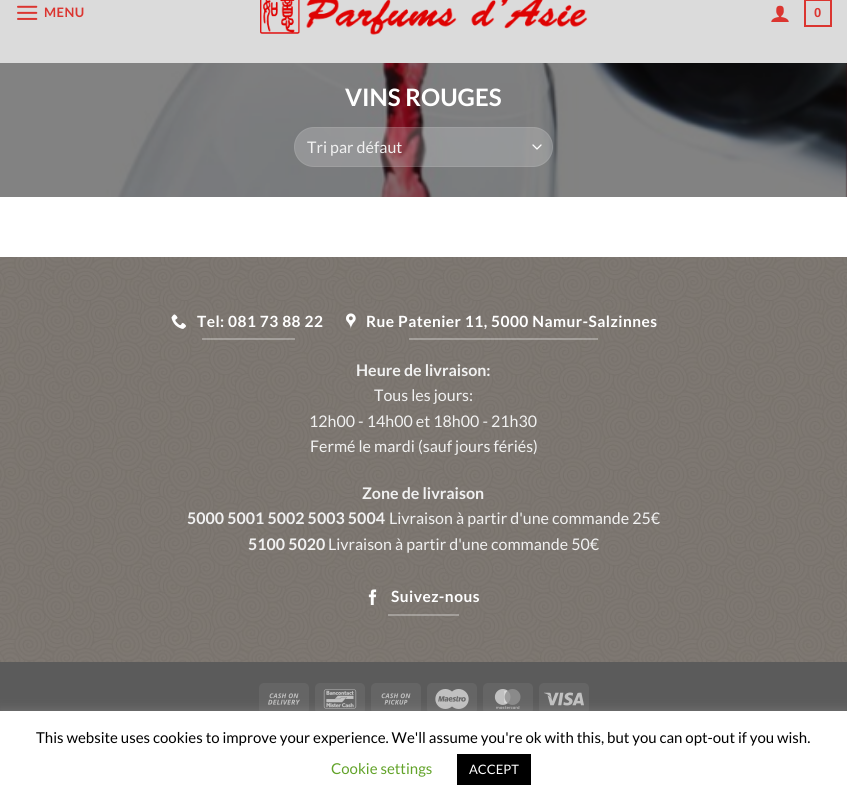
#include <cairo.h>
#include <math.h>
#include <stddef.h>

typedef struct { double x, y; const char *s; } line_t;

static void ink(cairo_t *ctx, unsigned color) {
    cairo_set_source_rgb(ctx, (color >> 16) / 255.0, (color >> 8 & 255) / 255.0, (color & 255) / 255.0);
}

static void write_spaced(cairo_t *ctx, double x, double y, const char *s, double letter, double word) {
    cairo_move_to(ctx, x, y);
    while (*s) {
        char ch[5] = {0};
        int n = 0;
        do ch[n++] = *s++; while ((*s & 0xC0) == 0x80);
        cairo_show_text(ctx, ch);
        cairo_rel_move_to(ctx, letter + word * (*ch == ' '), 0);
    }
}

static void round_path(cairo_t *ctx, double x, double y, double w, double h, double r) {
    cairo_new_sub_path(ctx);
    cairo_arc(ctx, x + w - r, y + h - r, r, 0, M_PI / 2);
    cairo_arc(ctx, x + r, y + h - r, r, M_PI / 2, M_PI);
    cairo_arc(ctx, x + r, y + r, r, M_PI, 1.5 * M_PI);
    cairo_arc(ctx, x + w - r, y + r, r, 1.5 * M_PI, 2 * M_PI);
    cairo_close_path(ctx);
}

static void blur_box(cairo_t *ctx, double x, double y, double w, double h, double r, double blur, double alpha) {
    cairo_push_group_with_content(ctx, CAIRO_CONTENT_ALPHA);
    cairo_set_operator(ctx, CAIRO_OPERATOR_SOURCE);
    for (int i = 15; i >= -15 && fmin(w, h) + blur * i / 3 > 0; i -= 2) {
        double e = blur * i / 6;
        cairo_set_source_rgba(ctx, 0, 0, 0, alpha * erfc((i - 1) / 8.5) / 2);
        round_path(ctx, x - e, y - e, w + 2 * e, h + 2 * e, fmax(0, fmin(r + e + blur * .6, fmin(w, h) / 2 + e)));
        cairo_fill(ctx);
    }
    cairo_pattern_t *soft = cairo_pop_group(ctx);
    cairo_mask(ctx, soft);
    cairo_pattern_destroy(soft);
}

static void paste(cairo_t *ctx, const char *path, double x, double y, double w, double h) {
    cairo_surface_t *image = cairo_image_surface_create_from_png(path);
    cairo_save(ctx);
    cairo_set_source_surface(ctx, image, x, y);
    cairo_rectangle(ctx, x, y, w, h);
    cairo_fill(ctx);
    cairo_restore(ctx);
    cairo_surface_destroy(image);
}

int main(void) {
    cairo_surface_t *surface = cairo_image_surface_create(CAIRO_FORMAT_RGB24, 847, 802);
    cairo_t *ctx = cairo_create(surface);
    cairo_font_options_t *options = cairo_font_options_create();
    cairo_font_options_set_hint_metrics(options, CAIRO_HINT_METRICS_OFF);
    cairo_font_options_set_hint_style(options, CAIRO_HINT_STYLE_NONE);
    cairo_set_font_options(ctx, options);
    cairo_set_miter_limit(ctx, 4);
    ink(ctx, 0xFFFFFF);
    cairo_paint(ctx);
    ink(ctx, 0xDBDBDB);
    cairo_rectangle(ctx, 0, 0, 847, 63);
    cairo_fill(ctx);
    paste(ctx, "media/1.png", 17, 5, 21, 15);
    cairo_select_font_face(ctx, "Lato", CAIRO_FONT_SLANT_NORMAL, CAIRO_FONT_WEIGHT_BOLD);
    cairo_set_font_size(ctx, 13);
    ink(ctx, 0xDB3530);
    write_spaced(ctx, 44, 17, "MENU", 0.5, 0);
    paste(ctx, "media/2.png", 260, 0, 328, 35);
    paste(ctx, "media/3.png", 771, 5, 18, 17);
    cairo_rectangle(ctx, 805, 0, 26, 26);
    cairo_stroke(ctx);
    cairo_select_font_face(ctx, "Liberation Sans", CAIRO_FONT_SLANT_NORMAL, CAIRO_FONT_WEIGHT_BOLD);
    cairo_move_to(ctx, 814, 17);
    cairo_show_text(ctx, "0");
    ink(ctx, 0x300B10);
    cairo_rectangle(ctx, 845, 63, 2, 134);
    cairo_fill(ctx);
    paste(ctx, "media/4.png", 0, 63, 847, 134);
    cairo_select_font_face(ctx, "Lato", CAIRO_FONT_SLANT_NORMAL, CAIRO_FONT_WEIGHT_BOLD);
    cairo_set_font_size(ctx, 24);
    ink(ctx, 0xFFFFFF);
    cairo_move_to(ctx, 345, 106);
    cairo_show_text(ctx, "VINS ROUGES");
    cairo_set_source_rgba(ctx, 1, 1, 1, 0.2);
    round_path(ctx, 294, 127, 259, 40, 20);
    cairo_fill(ctx);
    cairo_new_path(ctx);
    cairo_move_to(ctx, 533, 145);
    cairo_line_to(ctx, 537, 149);
    cairo_line_to(ctx, 541, 145);
    ink(ctx, 0xFFFFFF);
    cairo_set_line_width(ctx, 1.3);
    cairo_set_line_cap(ctx, CAIRO_LINE_CAP_ROUND);
    cairo_set_line_join(ctx, CAIRO_LINE_JOIN_ROUND);
    cairo_stroke(ctx);
    round_path(ctx, 294.5, 127.5, 258, 39, 19.5);
    cairo_set_source_rgba(ctx, 1, 1, 1, 0.09);
    cairo_set_line_width(ctx, 1);
    cairo_set_line_cap(ctx, CAIRO_LINE_CAP_BUTT);
    cairo_set_line_join(ctx, CAIRO_LINE_JOIN_MITER);
    cairo_stroke(ctx);
    cairo_select_font_face(ctx, "Lato", CAIRO_FONT_SLANT_NORMAL, CAIRO_FONT_WEIGHT_NORMAL);
    cairo_set_font_size(ctx, 16);
    ink(ctx, 0xF1F1F1);
    cairo_move_to(ctx, 307, 153);
    cairo_show_text(ctx, "Tri par défaut");
    paste(ctx, "media/5.png", 0, 257, 847, 405);
    paste(ctx, "media/6.png", 171, 314, 15, 15);
    cairo_select_font_face(ctx, "Lato", CAIRO_FONT_SLANT_NORMAL, CAIRO_FONT_WEIGHT_BOLD);
    cairo_set_font_size(ctx, 15.5);
    ink(ctx, 0xFFFFFF);
    write_spaced(ctx, 197, 327, "Tel: 081 73 88 22", 0.45, 0);
    cairo_set_source_rgba(ctx, 1, 1, 1, 0.3);
    cairo_rectangle(ctx, 202, 338, 93, 2);
    cairo_fill(ctx);
    paste(ctx, "media/7.png", 346, 313, 10, 16);
    ink(ctx, 0xFFFFFF);
    write_spaced(ctx, 366, 327, "Rue Patenier 11, 5000 Namur-Salzinnes", 0.45, 0);
    cairo_set_source_rgba(ctx, 1, 1, 1, 0.3);
    cairo_rectangle(ctx, 409, 338, 189, 2);
    cairo_fill(ctx);
    cairo_set_font_size(ctx, 16);
    ink(ctx, 0xF1F1F1);
    cairo_move_to(ctx, 356, 376);
    cairo_show_text(ctx, "Heure de livraison:");
    cairo_select_font_face(ctx, "Lato", CAIRO_FONT_SLANT_NORMAL, CAIRO_FONT_WEIGHT_NORMAL);
    {
        static const line_t items[] = {
            {374, 401, "Tous les jours:"},
            {309, 427, "12h00 - 14h00 et 18h00 - 21h30"},
            {310, 452, "Fermé le mardi (sauf jours fériés)"},
        };
        for (size_t i = 0; i < sizeof items / sizeof *items; i++) {
            cairo_move_to(ctx, items[i].x, items[i].y);
            cairo_show_text(ctx, items[i].s);
        }
    }
    cairo_select_font_face(ctx, "Lato", CAIRO_FONT_SLANT_NORMAL, CAIRO_FONT_WEIGHT_BOLD);
    cairo_move_to(ctx, 362, 499);
    cairo_show_text(ctx, "Zone de livraison");
    cairo_move_to(ctx, 187, 524);
    cairo_show_text(ctx, "5000 5001 5002 5003 5004");
    cairo_select_font_face(ctx, "Lato", CAIRO_FONT_SLANT_NORMAL, CAIRO_FONT_WEIGHT_NORMAL);
    cairo_move_to(ctx, 389, 524);
    cairo_show_text(ctx, "Livraison à partir d'une commande 25€");
    cairo_select_font_face(ctx, "Lato", CAIRO_FONT_SLANT_NORMAL, CAIRO_FONT_WEIGHT_BOLD);
    cairo_move_to(ctx, 248, 550);
    cairo_show_text(ctx, "5100 5020");
    cairo_select_font_face(ctx, "Lato", CAIRO_FONT_SLANT_NORMAL, CAIRO_FONT_WEIGHT_NORMAL);
    cairo_move_to(ctx, 328, 550);
    cairo_show_text(ctx, "Livraison à partir d'une commande 50€");
    paste(ctx, "media/8.png", 368, 589, 9, 16);
    cairo_select_font_face(ctx, "Lato", CAIRO_FONT_SLANT_NORMAL, CAIRO_FONT_WEIGHT_BOLD);
    cairo_set_font_size(ctx, 15.5);
    ink(ctx, 0xFFFFFF);
    write_spaced(ctx, 391, 602, "Suivez-nous", 0.45, 0);
    cairo_set_source_rgba(ctx, 1, 1, 1, 0.3);
    cairo_rectangle(ctx, 388, 614, 71, 2);
    cairo_fill(ctx);
    ink(ctx, 0x5B5B5B);
    cairo_rectangle(ctx, 0, 662, 847, 49);
    cairo_fill(ctx);
    ink(ctx, 0x656565);
    round_path(ctx, 259, 683, 50, 31, 5);
    cairo_fill(ctx);
    paste(ctx, "media/9.png", 268, 693, 32, 12);
    round_path(ctx, 315, 683, 50, 31, 5);
    cairo_fill(ctx);
    paste(ctx, "media/10.png", 323, 689, 34, 20);
    round_path(ctx, 371, 683, 50, 31, 5);
    cairo_fill(ctx);
    paste(ctx, "media/11.png", 381, 693, 30, 12);
    round_path(ctx, 427, 683, 50, 31, 5);
    cairo_fill(ctx);
    paste(ctx, "media/12.png", 435, 689, 34, 20);
    round_path(ctx, 483, 683, 50, 31, 5);
    cairo_fill(ctx);
    paste(ctx, "media/13.png", 494, 689, 27, 20);
    round_path(ctx, 539, 683, 50, 31, 5);
    cairo_fill(ctx);
    paste(ctx, "media/14.png", 544, 692, 40, 14);
    ink(ctx, 0xACABAB);
    blur_box(ctx, 0, 710, 847, 91, 0, 5, 0.3);
    ink(ctx, 0xFFFFFF);
    cairo_rectangle(ctx, 0, 711, 847, 91);
    cairo_fill(ctx);
    cairo_select_font_face(ctx, "Lato", CAIRO_FONT_SLANT_NORMAL, CAIRO_FONT_WEIGHT_NORMAL);
    cairo_set_font_size(ctx, 15);
    ink(ctx, 0x000000);
    cairo_move_to(ctx, 36, 743);
    cairo_show_text(ctx, "This website uses cookies to improve your experience. We'll assume you're ok with this, but you can opt-out if you wish.");
    ink(ctx, 0x62A329);
    cairo_move_to(ctx, 331, 774);
    cairo_show_text(ctx, "Cookie settings");
    ink(ctx, 0x000000);
    cairo_rectangle(ctx, 457, 754, 74, 31);
    cairo_fill(ctx);
    cairo_set_font_size(ctx, 13);
    ink(ctx, 0xFFFFFF);
    cairo_move_to(ctx, 469, 774);
    cairo_show_text(ctx, "ACCEPT");
    cairo_surface_write_to_png(surface, "image.png");
    cairo_font_options_destroy(options);
    cairo_destroy(ctx);
    cairo_surface_destroy(surface);
    return 0;
}
